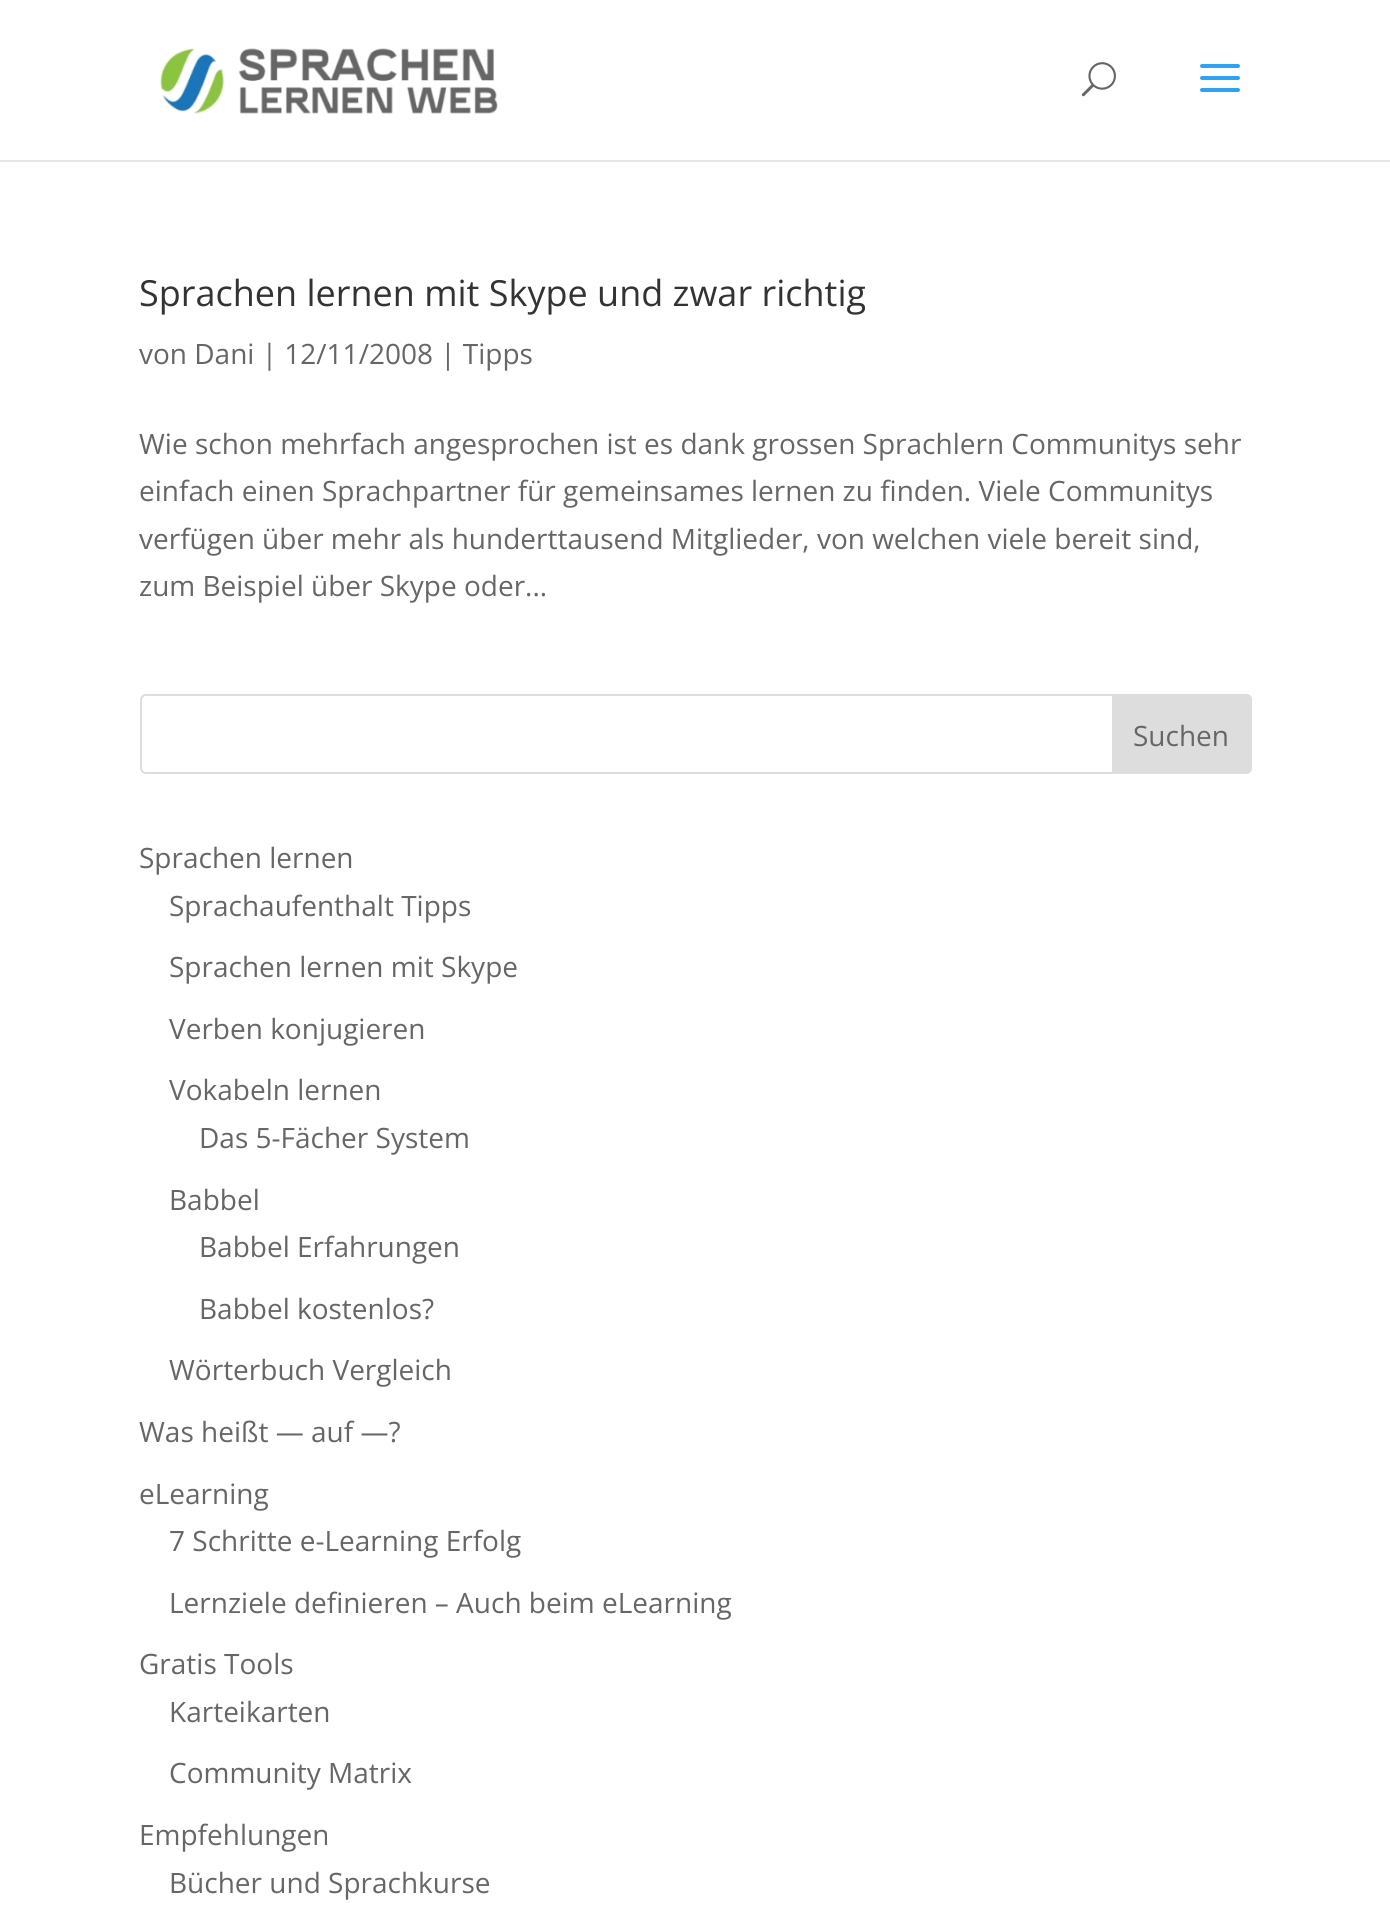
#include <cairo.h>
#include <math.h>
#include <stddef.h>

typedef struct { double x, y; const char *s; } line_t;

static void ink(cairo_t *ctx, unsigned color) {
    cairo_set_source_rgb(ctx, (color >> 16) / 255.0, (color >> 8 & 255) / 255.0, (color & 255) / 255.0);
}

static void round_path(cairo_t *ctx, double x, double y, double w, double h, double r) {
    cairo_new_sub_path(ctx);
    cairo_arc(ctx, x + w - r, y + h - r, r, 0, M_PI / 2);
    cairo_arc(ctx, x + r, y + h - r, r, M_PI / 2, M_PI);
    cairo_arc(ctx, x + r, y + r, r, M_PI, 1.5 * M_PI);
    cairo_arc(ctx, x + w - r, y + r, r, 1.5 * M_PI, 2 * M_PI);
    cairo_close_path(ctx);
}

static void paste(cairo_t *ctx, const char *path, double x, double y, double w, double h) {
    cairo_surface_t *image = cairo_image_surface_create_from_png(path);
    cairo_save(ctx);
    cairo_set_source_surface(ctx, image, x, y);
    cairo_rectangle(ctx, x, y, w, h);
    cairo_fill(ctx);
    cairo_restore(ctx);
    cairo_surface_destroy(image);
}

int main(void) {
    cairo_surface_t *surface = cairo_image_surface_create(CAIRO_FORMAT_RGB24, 1390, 1918);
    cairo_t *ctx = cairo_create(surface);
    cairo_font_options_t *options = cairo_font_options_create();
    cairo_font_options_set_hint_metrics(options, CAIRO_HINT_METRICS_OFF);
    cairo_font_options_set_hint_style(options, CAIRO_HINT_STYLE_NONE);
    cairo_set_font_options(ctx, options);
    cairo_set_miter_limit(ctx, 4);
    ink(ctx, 0xFFFFFF);
    cairo_paint(ctx);
    ink(ctx, 0xE6E6E6);
    cairo_rectangle(ctx, 0, 160, 1390, 2);
    cairo_fill(ctx);
    paste(ctx, "media/1.png", 159, 47, 339, 68);
    paste(ctx, "media/2.png", 1081, 62, 35, 35);
    paste(ctx, "media/3.png", 1200, 64, 40, 28);
    cairo_select_font_face(ctx, "Open Sans", CAIRO_FONT_SLANT_NORMAL, CAIRO_FONT_WEIGHT_NORMAL);
    cairo_set_font_size(ctx, 36);
    ink(ctx, 0x333333);
    cairo_move_to(ctx, 139, 306);
    cairo_show_text(ctx, "Sprachen lernen mit Skype und zwar richtig");
    cairo_set_font_size(ctx, 28);
    ink(ctx, 0x666666);
    {
        static const line_t items[] = {
            {139, 364, "von Dani | 12/11/2008 | Tipps"},
            {139, 454, "Wie schon mehrfach angesprochen ist es dank grossen Sprachlern Communitys sehr"},
            {139, 501, "einfach einen Sprachpartner für gemeinsames lernen zu finden. Viele Communitys"},
            {139, 549, "verfügen über mehr als hunderttausend Mitglieder, von welchen viele bereit sind,"},
            {139, 596, "zum Beispiel über Skype oder..."},
        };
        for (size_t i = 0; i < sizeof items / sizeof *items; i++) {
            cairo_move_to(ctx, items[i].x, items[i].y);
            cairo_show_text(ctx, items[i].s);
        }
    }
    round_path(ctx, 141, 695, 1110, 78, 5);
    ink(ctx, 0xDDDDDD);
    cairo_stroke(ctx);
    cairo_new_path(ctx);
    cairo_move_to(ctx, 1113, 695);
    cairo_line_to(ctx, 1246, 695);
    cairo_curve_to(ctx, 1249, 695, 1251, 697, 1251, 700);
    cairo_line_to(ctx, 1251, 768);
    cairo_curve_to(ctx, 1251, 771, 1249, 773, 1246, 773);
    cairo_line_to(ctx, 1113, 773);
    cairo_close_path(ctx);
    cairo_fill_preserve(ctx);
    cairo_stroke(ctx);
    ink(ctx, 0x666666);
    {
        static const line_t items[] = {
            {1133, 746, "Suchen"},
            {139, 868, "Sprachen lernen"},
            {169, 916, "Sprachaufenthalt Tipps"},
            {169, 977, "Sprachen lernen mit Skype"},
            {169, 1039, "Verben konjugieren"},
            {169, 1100, "Vokabeln lernen"},
            {199, 1148, "Das 5-Fächer System"},
            {169, 1210, "Babbel"},
            {199, 1257, "Babbel Erfahrungen"},
            {199, 1319, "Babbel kostenlos?"},
            {169, 1380, "Wörterbuch Vergleich"},
            {139, 1442, "Was heißt — auf —?"},
            {139, 1504, "eLearning"},
            {169, 1551, "7 Schritte e-Learning Erfolg"},
            {169, 1613, "Lernziele definieren – Auch beim eLearning"},
            {139, 1674, "Gratis Tools"},
            {169, 1722, "Karteikarten"},
            {169, 1783, "Community Matrix"},
            {139, 1845, "Empfehlungen"},
            {169, 1893, "Bücher und Sprachkurse"},
        };
        for (size_t i = 0; i < sizeof items / sizeof *items; i++) {
            cairo_move_to(ctx, items[i].x, items[i].y);
            cairo_show_text(ctx, items[i].s);
        }
    }
    cairo_surface_write_to_png(surface, "image.png");
    cairo_font_options_destroy(options);
    cairo_destroy(ctx);
    cairo_surface_destroy(surface);
    return 0;
}
